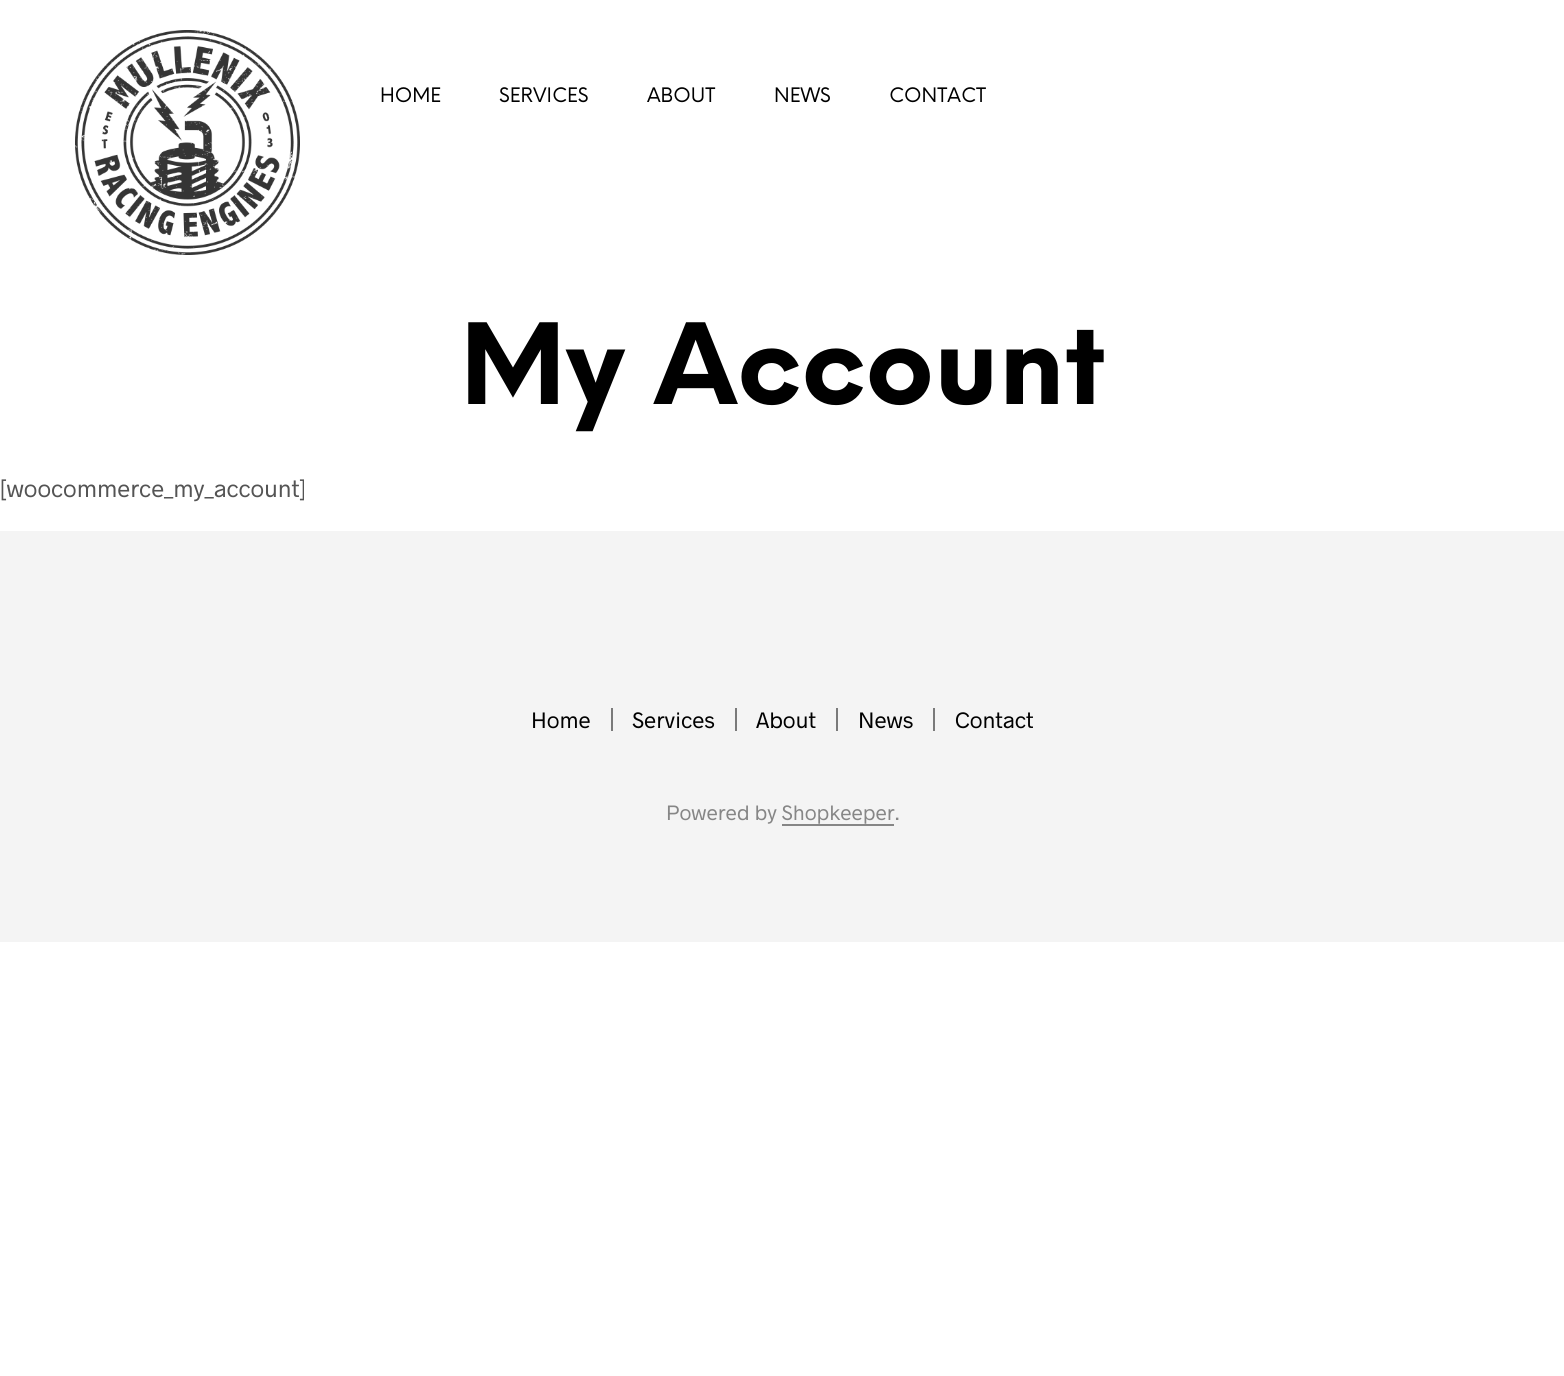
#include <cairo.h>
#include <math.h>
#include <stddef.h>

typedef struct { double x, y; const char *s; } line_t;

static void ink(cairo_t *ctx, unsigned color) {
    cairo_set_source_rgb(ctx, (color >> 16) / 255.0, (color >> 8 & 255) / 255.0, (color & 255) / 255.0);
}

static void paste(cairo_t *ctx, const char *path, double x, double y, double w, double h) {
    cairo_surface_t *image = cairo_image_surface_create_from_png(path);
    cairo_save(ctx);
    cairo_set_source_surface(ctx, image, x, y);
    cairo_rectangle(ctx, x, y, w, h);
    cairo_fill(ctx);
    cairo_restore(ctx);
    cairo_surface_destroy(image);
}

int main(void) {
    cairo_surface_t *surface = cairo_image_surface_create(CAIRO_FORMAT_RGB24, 1564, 1376);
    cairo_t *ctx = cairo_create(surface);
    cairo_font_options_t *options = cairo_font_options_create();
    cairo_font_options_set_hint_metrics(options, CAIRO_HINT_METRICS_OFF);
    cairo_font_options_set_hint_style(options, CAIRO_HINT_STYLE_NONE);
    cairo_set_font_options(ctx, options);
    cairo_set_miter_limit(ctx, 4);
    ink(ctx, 0xFFFFFF);
    cairo_paint(ctx);
    paste(ctx, "media/1.png", 75, 30, 225, 225);
    cairo_select_font_face(ctx, "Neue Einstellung", CAIRO_FONT_SLANT_NORMAL, CAIRO_FONT_WEIGHT_NORMAL);
    cairo_set_font_size(ctx, 19.5);
    ink(ctx, 0x000000);
    {
        static const line_t items[] = {
            {380, 102, "HOME"},
            {499, 102, "SERVICES"},
            {647, 102, "ABOUT"},
            {774, 102, "NEWS"},
            {889, 102, "CONTACT"},
        };
        for (size_t i = 0; i < sizeof items / sizeof *items; i++) {
            cairo_move_to(ctx, items[i].x, items[i].y);
            cairo_show_text(ctx, items[i].s);
        }
    }
    cairo_select_font_face(ctx, "Neue Einstellung", CAIRO_FONT_SLANT_NORMAL, CAIRO_FONT_WEIGHT_BOLD);
    cairo_set_font_size(ctx, 109);
    cairo_move_to(ctx, 460, 404);
    cairo_show_text(ctx, "My Account");
    cairo_select_font_face(ctx, "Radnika", CAIRO_FONT_SLANT_NORMAL, CAIRO_FONT_WEIGHT_NORMAL);
    cairo_set_font_size(ctx, 24);
    ink(ctx, 0x545454);
    cairo_move_to(ctx, 0, 497);
    cairo_show_text(ctx, "[woocommerce_my_account]");
    ink(ctx, 0xF4F4F4);
    cairo_rectangle(ctx, 0, 531, 1564, 411);
    cairo_fill(ctx);
    cairo_set_font_size(ctx, 22.5);
    ink(ctx, 0x000000);
    cairo_move_to(ctx, 531, 728);
    cairo_show_text(ctx, "Home");
    ink(ctx, 0x7A7A7A);
    cairo_rectangle(ctx, 611, 708, 2, 23);
    cairo_fill(ctx);
    ink(ctx, 0x000000);
    cairo_move_to(ctx, 632, 728);
    cairo_show_text(ctx, "Services");
    ink(ctx, 0x7A7A7A);
    cairo_rectangle(ctx, 735, 708, 2, 23);
    cairo_fill(ctx);
    ink(ctx, 0x000000);
    cairo_move_to(ctx, 756, 728);
    cairo_show_text(ctx, "About");
    ink(ctx, 0x7A7A7A);
    cairo_rectangle(ctx, 836, 708, 2, 23);
    cairo_fill(ctx);
    ink(ctx, 0x000000);
    cairo_move_to(ctx, 858, 728);
    cairo_show_text(ctx, "News");
    ink(ctx, 0x7A7A7A);
    cairo_rectangle(ctx, 933, 708, 2, 23);
    cairo_fill(ctx);
    ink(ctx, 0x000000);
    cairo_move_to(ctx, 955, 728);
    cairo_show_text(ctx, "Contact");
    cairo_set_font_size(ctx, 21);
    ink(ctx, 0x868686);
    cairo_move_to(ctx, 666, 820);
    cairo_show_text(ctx, "Powered by Shopkeeper.");
    cairo_rectangle(ctx, 782, 824, 112, 2);
    cairo_fill(ctx);
    cairo_surface_write_to_png(surface, "image.png");
    cairo_font_options_destroy(options);
    cairo_destroy(ctx);
    cairo_surface_destroy(surface);
    return 0;
}
